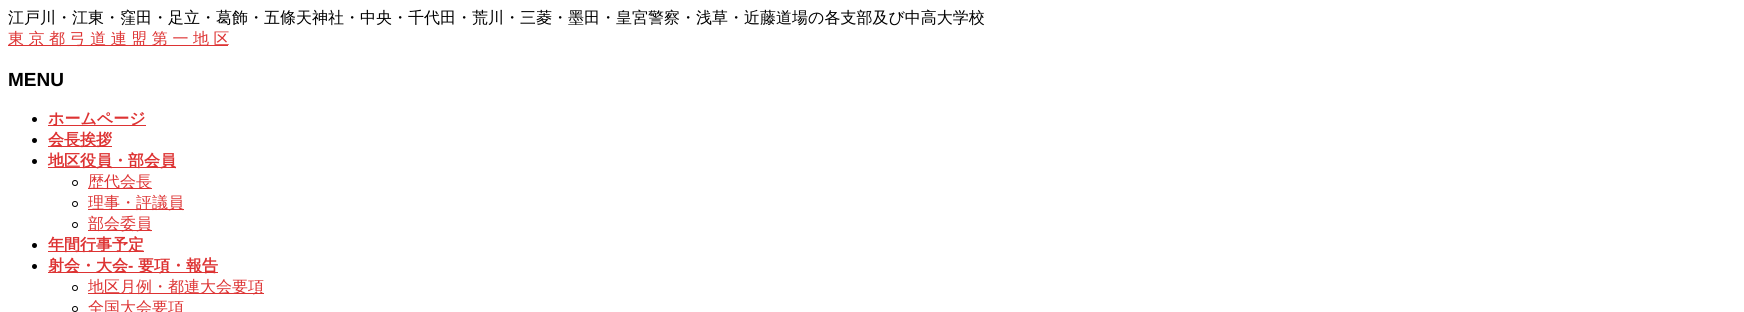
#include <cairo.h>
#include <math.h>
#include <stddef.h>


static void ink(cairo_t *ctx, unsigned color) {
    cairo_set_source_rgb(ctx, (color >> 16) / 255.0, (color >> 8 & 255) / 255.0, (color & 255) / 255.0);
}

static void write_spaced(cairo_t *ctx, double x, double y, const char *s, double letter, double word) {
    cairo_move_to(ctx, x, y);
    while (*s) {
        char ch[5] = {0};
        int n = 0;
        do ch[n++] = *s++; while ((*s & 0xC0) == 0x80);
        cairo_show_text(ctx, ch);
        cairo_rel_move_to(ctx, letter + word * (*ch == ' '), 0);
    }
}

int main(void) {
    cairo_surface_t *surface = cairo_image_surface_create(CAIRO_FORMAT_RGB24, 1744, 312);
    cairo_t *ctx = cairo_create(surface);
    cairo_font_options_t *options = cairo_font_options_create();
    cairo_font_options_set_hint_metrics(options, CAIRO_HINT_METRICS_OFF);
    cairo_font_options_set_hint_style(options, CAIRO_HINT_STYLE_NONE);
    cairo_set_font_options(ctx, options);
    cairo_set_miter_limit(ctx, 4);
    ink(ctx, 0xFFFFFF);
    cairo_paint(ctx);
    cairo_select_font_face(ctx, "WenQuanYi Zen Hei Medium", CAIRO_FONT_SLANT_NORMAL, CAIRO_FONT_WEIGHT_NORMAL);
    cairo_set_font_size(ctx, 16);
    ink(ctx, 0x000000);
    cairo_move_to(ctx, 8, 23);
    cairo_show_text(ctx, "江戸川・江東・窪田・足立・葛飾・五條天神社・中央・千代田・荒川・三菱・墨田・皇宮警察・浅草・近藤道場の各支部及び中高大学校");
    ink(ctx, 0xDD3333);
    cairo_rectangle(ctx, 8, 45, 220, 1);
    cairo_fill(ctx);
    write_spaced(ctx, 8, 44, "東 京 都 弓 道 連 盟 第 一 地 区", 0, -0.25);
    cairo_select_font_face(ctx, "Liberation Sans", CAIRO_FONT_SLANT_NORMAL, CAIRO_FONT_WEIGHT_BOLD);
    cairo_set_font_size(ctx, 19);
    ink(ctx, 0x000000);
    cairo_move_to(ctx, 8, 86);
    cairo_show_text(ctx, "MENU");
    cairo_new_path(ctx);
    cairo_arc(ctx, 34.5, 119.5, 2.5, 0, 2 * M_PI);
    cairo_fill(ctx);
    ink(ctx, 0xDD3333);
    cairo_rectangle(ctx, 48, 125, 98, 1);
    cairo_fill(ctx);
    cairo_select_font_face(ctx, "WenQuanYi Zen Hei", CAIRO_FONT_SLANT_NORMAL, CAIRO_FONT_WEIGHT_BOLD);
    cairo_set_font_size(ctx, 16);
    cairo_move_to(ctx, 48, 124);
    cairo_show_text(ctx, "ホームページ");
    ink(ctx, 0x000000);
    cairo_new_path(ctx);
    cairo_arc(ctx, 34.5, 140.5, 2.5, 0, 2 * M_PI);
    cairo_fill(ctx);
    ink(ctx, 0xDD3333);
    cairo_rectangle(ctx, 48, 146, 64, 1);
    cairo_fill(ctx);
    cairo_move_to(ctx, 48, 145);
    cairo_show_text(ctx, "会長挨拶");
    ink(ctx, 0x000000);
    cairo_new_path(ctx);
    cairo_arc(ctx, 34.5, 161.5, 2.5, 0, 2 * M_PI);
    cairo_fill(ctx);
    ink(ctx, 0xDD3333);
    cairo_rectangle(ctx, 48, 167, 128, 1);
    cairo_fill(ctx);
    cairo_move_to(ctx, 48, 166);
    cairo_show_text(ctx, "地区役員・部会員");
    cairo_new_path(ctx);
    cairo_arc(ctx, 75, 183, 2.5, 0, 2 * M_PI);
    ink(ctx, 0x000000);
    cairo_set_line_width(ctx, 1);
    cairo_stroke(ctx);
    ink(ctx, 0xDD3333);
    cairo_rectangle(ctx, 88, 188, 64, 1);
    cairo_fill(ctx);
    cairo_select_font_face(ctx, "WenQuanYi Zen Hei Medium", CAIRO_FONT_SLANT_NORMAL, CAIRO_FONT_WEIGHT_NORMAL);
    cairo_move_to(ctx, 88, 187);
    cairo_show_text(ctx, "歴代会長");
    cairo_new_path(ctx);
    cairo_arc(ctx, 75, 204, 2.5, 0, 2 * M_PI);
    ink(ctx, 0x000000);
    cairo_stroke(ctx);
    ink(ctx, 0xDD3333);
    cairo_rectangle(ctx, 88, 209, 96, 1);
    cairo_fill(ctx);
    cairo_move_to(ctx, 88, 208);
    cairo_show_text(ctx, "理事・評議員");
    cairo_new_path(ctx);
    cairo_arc(ctx, 75, 225, 2.5, 0, 2 * M_PI);
    ink(ctx, 0x000000);
    cairo_stroke(ctx);
    ink(ctx, 0xDD3333);
    cairo_rectangle(ctx, 88, 230, 64, 1);
    cairo_fill(ctx);
    cairo_move_to(ctx, 88, 229);
    cairo_show_text(ctx, "部会委員");
    ink(ctx, 0x000000);
    cairo_new_path(ctx);
    cairo_arc(ctx, 34.5, 245.5, 2.5, 0, 2 * M_PI);
    cairo_fill(ctx);
    ink(ctx, 0xDD3333);
    cairo_rectangle(ctx, 48, 251, 96, 1);
    cairo_fill(ctx);
    cairo_select_font_face(ctx, "WenQuanYi Zen Hei", CAIRO_FONT_SLANT_NORMAL, CAIRO_FONT_WEIGHT_BOLD);
    cairo_move_to(ctx, 48, 250);
    cairo_show_text(ctx, "年間行事予定");
    ink(ctx, 0x000000);
    cairo_new_path(ctx);
    cairo_arc(ctx, 34.5, 266.5, 2.5, 0, 2 * M_PI);
    cairo_fill(ctx);
    ink(ctx, 0xDD3333);
    cairo_rectangle(ctx, 48, 272, 170, 1);
    cairo_fill(ctx);
    cairo_move_to(ctx, 48, 271);
    cairo_show_text(ctx, "射会・大会");
    cairo_select_font_face(ctx, "Liberation Sans", CAIRO_FONT_SLANT_NORMAL, CAIRO_FONT_WEIGHT_BOLD);
    cairo_move_to(ctx, 128, 271);
    cairo_show_text(ctx, "-");
    cairo_select_font_face(ctx, "WenQuanYi Zen Hei", CAIRO_FONT_SLANT_NORMAL, CAIRO_FONT_WEIGHT_BOLD);
    cairo_move_to(ctx, 138, 271);
    cairo_show_text(ctx, "要項・報告");
    cairo_new_path(ctx);
    cairo_arc(ctx, 75, 288, 2.5, 0, 2 * M_PI);
    ink(ctx, 0x000000);
    cairo_stroke(ctx);
    ink(ctx, 0xDD3333);
    cairo_rectangle(ctx, 88, 293, 176, 1);
    cairo_fill(ctx);
    cairo_select_font_face(ctx, "WenQuanYi Zen Hei Medium", CAIRO_FONT_SLANT_NORMAL, CAIRO_FONT_WEIGHT_NORMAL);
    cairo_move_to(ctx, 88, 292);
    cairo_show_text(ctx, "地区月例・都連大会要項");
    cairo_new_path(ctx);
    cairo_arc(ctx, 75, 309, 2.5, 0, 2 * M_PI);
    ink(ctx, 0x000000);
    cairo_stroke(ctx);
    ink(ctx, 0xDD3333);
    cairo_move_to(ctx, 88, 313);
    cairo_show_text(ctx, "全国大会要項");
    cairo_surface_write_to_png(surface, "image.png");
    cairo_font_options_destroy(options);
    cairo_destroy(ctx);
    cairo_surface_destroy(surface);
    return 0;
}
